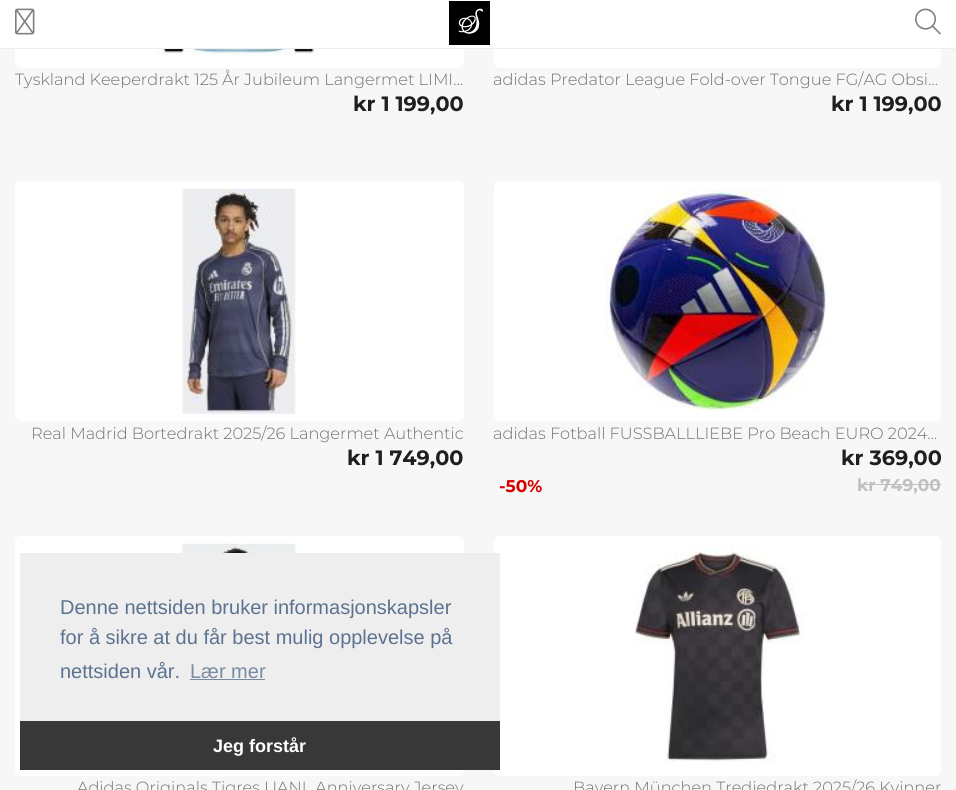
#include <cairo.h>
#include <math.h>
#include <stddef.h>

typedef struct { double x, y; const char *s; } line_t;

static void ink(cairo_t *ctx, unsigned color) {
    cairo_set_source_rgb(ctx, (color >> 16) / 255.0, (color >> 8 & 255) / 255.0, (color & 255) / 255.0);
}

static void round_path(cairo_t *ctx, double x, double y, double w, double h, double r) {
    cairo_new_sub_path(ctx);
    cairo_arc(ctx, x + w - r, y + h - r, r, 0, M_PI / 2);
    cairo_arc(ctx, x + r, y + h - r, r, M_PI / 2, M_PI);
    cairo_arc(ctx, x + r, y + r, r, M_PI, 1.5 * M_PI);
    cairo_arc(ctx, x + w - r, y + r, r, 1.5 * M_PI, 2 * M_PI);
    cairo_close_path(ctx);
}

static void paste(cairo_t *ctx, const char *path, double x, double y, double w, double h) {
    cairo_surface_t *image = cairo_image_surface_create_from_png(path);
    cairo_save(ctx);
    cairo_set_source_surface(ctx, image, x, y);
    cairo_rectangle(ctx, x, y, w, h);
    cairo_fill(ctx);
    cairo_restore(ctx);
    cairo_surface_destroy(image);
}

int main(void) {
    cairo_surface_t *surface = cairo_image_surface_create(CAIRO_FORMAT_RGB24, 956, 790);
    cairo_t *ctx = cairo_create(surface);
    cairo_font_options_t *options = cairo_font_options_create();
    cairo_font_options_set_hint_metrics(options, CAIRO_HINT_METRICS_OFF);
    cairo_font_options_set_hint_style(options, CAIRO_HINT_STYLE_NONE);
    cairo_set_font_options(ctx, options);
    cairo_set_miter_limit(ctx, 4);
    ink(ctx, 0xF7F7F7);
    cairo_paint(ctx);
    ink(ctx, 0xFFFFFF);
    round_path(ctx, 15, -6, 449, 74, 6);
    cairo_fill(ctx);
    round_path(ctx, 494, -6, 447, 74, 6);
    cairo_fill(ctx);
    cairo_rectangle(ctx, 0, 0, 956, 48);
    cairo_fill(ctx);
    ink(ctx, 0xEEEEEE);
    cairo_rectangle(ctx, 0, 48, 956, 1);
    cairo_fill(ctx);
    paste(ctx, "media/1.png", 15, 8, 20, 27);
    ink(ctx, 0x000000);
    cairo_rectangle(ctx, 449, 1, 41, 44);
    cairo_fill(ctx);
    cairo_select_font_face(ctx, "Mea Culpa", CAIRO_FONT_SLANT_NORMAL, CAIRO_FONT_WEIGHT_BOLD);
    cairo_set_font_size(ctx, 27);
    ink(ctx, 0xFFFFFF);
    cairo_move_to(ctx, 458, 31);
    cairo_show_text(ctx, "S");
    paste(ctx, "media/2.png", 915, 8, 26, 27);
    paste(ctx, "media/3.png", 156, 49, 165, 6);
    cairo_select_font_face(ctx, "Montserrat Light", CAIRO_FONT_SLANT_NORMAL, CAIRO_FONT_WEIGHT_NORMAL);
    cairo_set_font_size(ctx, 16.2);
    ink(ctx, 0x717171);
    cairo_move_to(ctx, 15, 85);
    cairo_show_text(ctx, "Tyskland Keeperdrakt 125 År Jubileum Langermet LIMI…");
    cairo_select_font_face(ctx, "Montserrat", CAIRO_FONT_SLANT_NORMAL, CAIRO_FONT_WEIGHT_BOLD);
    cairo_set_font_size(ctx, 20.75);
    ink(ctx, 0x1F1F1F);
    cairo_move_to(ctx, 353, 111);
    cairo_show_text(ctx, "kr 1 199,00");
    cairo_select_font_face(ctx, "Montserrat Light", CAIRO_FONT_SLANT_NORMAL, CAIRO_FONT_WEIGHT_NORMAL);
    cairo_set_font_size(ctx, 16.2);
    ink(ctx, 0x717171);
    cairo_move_to(ctx, 493, 85);
    cairo_show_text(ctx, "adidas Predator League Fold-over Tongue FG/AG Obsi…");
    cairo_select_font_face(ctx, "Montserrat", CAIRO_FONT_SLANT_NORMAL, CAIRO_FONT_WEIGHT_BOLD);
    cairo_set_font_size(ctx, 20.75);
    ink(ctx, 0x1F1F1F);
    cairo_move_to(ctx, 831, 111);
    cairo_show_text(ctx, "kr 1 199,00");
    ink(ctx, 0xFFFFFF);
    round_path(ctx, 15, 181, 449, 240, 6);
    cairo_fill(ctx);
    paste(ctx, "media/4.png", 182, 188, 115, 226);
    cairo_select_font_face(ctx, "Montserrat Light", CAIRO_FONT_SLANT_NORMAL, CAIRO_FONT_WEIGHT_NORMAL);
    cairo_set_font_size(ctx, 16.2);
    ink(ctx, 0x717171);
    cairo_move_to(ctx, 31, 439);
    cairo_show_text(ctx, "Real Madrid Bortedrakt 2025/26 Langermet Authentic");
    cairo_select_font_face(ctx, "Montserrat", CAIRO_FONT_SLANT_NORMAL, CAIRO_FONT_WEIGHT_BOLD);
    cairo_set_font_size(ctx, 20.75);
    ink(ctx, 0x1F1F1F);
    cairo_move_to(ctx, 347, 465);
    cairo_show_text(ctx, "kr 1 749,00");
    ink(ctx, 0xFFFFFF);
    round_path(ctx, 494, 181, 447, 240, 6);
    cairo_fill(ctx);
    paste(ctx, "media/5.png", 605, 189, 221, 222);
    cairo_select_font_face(ctx, "Montserrat Light", CAIRO_FONT_SLANT_NORMAL, CAIRO_FONT_WEIGHT_NORMAL);
    cairo_set_font_size(ctx, 16.2);
    ink(ctx, 0x717171);
    cairo_move_to(ctx, 493, 439);
    cairo_show_text(ctx, "adidas Fotball FUSSBALLLIEBE Pro Beach EURO 2024…");
    cairo_select_font_face(ctx, "Montserrat", CAIRO_FONT_SLANT_NORMAL, CAIRO_FONT_WEIGHT_BOLD);
    cairo_set_font_size(ctx, 20.75);
    ink(ctx, 0x1F1F1F);
    cairo_move_to(ctx, 841, 465);
    cairo_show_text(ctx, "kr 369,00");
    cairo_set_font_size(ctx, 17);
    ink(ctx, 0xD60000);
    cairo_move_to(ctx, 499, 492);
    cairo_show_text(ctx, "-50%");
    ink(ctx, 0xC0C0C0);
    cairo_move_to(ctx, 857, 491);
    cairo_show_text(ctx, "kr 749,00");
    cairo_rectangle(ctx, 858, 484, 83, 1);
    cairo_fill(ctx);
    ink(ctx, 0xFFFFFF);
    round_path(ctx, 15, 536, 449, 240, 6);
    cairo_fill(ctx);
    paste(ctx, "media/6.png", 181, 543, 116, 10);
    cairo_select_font_face(ctx, "Montserrat Light", CAIRO_FONT_SLANT_NORMAL, CAIRO_FONT_WEIGHT_NORMAL);
    cairo_set_font_size(ctx, 16.2);
    ink(ctx, 0x717171);
    cairo_move_to(ctx, 77, 793);
    cairo_show_text(ctx, "Adidas Originals Tigres UANL Anniversary Jersey");
    ink(ctx, 0xFFFFFF);
    round_path(ctx, 494, 536, 447, 240, 6);
    cairo_fill(ctx);
    paste(ctx, "media/7.png", 634, 544, 171, 220);
    ink(ctx, 0x717171);
    cairo_move_to(ctx, 573, 793);
    cairo_show_text(ctx, "Bayern München Tredjedrakt 2025/26 Kvinner");
    ink(ctx, 0xEEEEEE);
    cairo_rectangle(ctx, 20, 553, 480, 168);
    cairo_fill(ctx);
    cairo_select_font_face(ctx, "Liberation Sans", CAIRO_FONT_SLANT_NORMAL, CAIRO_FONT_WEIGHT_NORMAL);
    cairo_set_font_size(ctx, 20);
    ink(ctx, 0x5C7291);
    {
        static const line_t items[] = {
            {60, 614, "Denne nettsiden bruker informasjonskapsler"},
            {60, 644, "for å sikre at du får best mulig opplevelse på"},
            {60, 678, "nettsiden vår."},
        };
        for (size_t i = 0; i < sizeof items / sizeof *items; i++) {
            cairo_move_to(ctx, items[i].x, items[i].y);
            cairo_show_text(ctx, items[i].s);
        }
    }
    ink(ctx, 0x798BA4);
    cairo_move_to(ctx, 190, 678);
    cairo_show_text(ctx, "Lær mer");
    cairo_rectangle(ctx, 190, 679, 75, 1);
    cairo_fill(ctx);
    ink(ctx, 0x383838);
    cairo_rectangle(ctx, 20, 721, 480, 49);
    cairo_fill(ctx);
    cairo_select_font_face(ctx, "Liberation Sans", CAIRO_FONT_SLANT_NORMAL, CAIRO_FONT_WEIGHT_BOLD);
    cairo_set_font_size(ctx, 18);
    ink(ctx, 0xFFFFFF);
    cairo_move_to(ctx, 213, 752);
    cairo_show_text(ctx, "Jeg forstår");
    cairo_surface_write_to_png(surface, "image.png");
    cairo_font_options_destroy(options);
    cairo_destroy(ctx);
    cairo_surface_destroy(surface);
    return 0;
}
